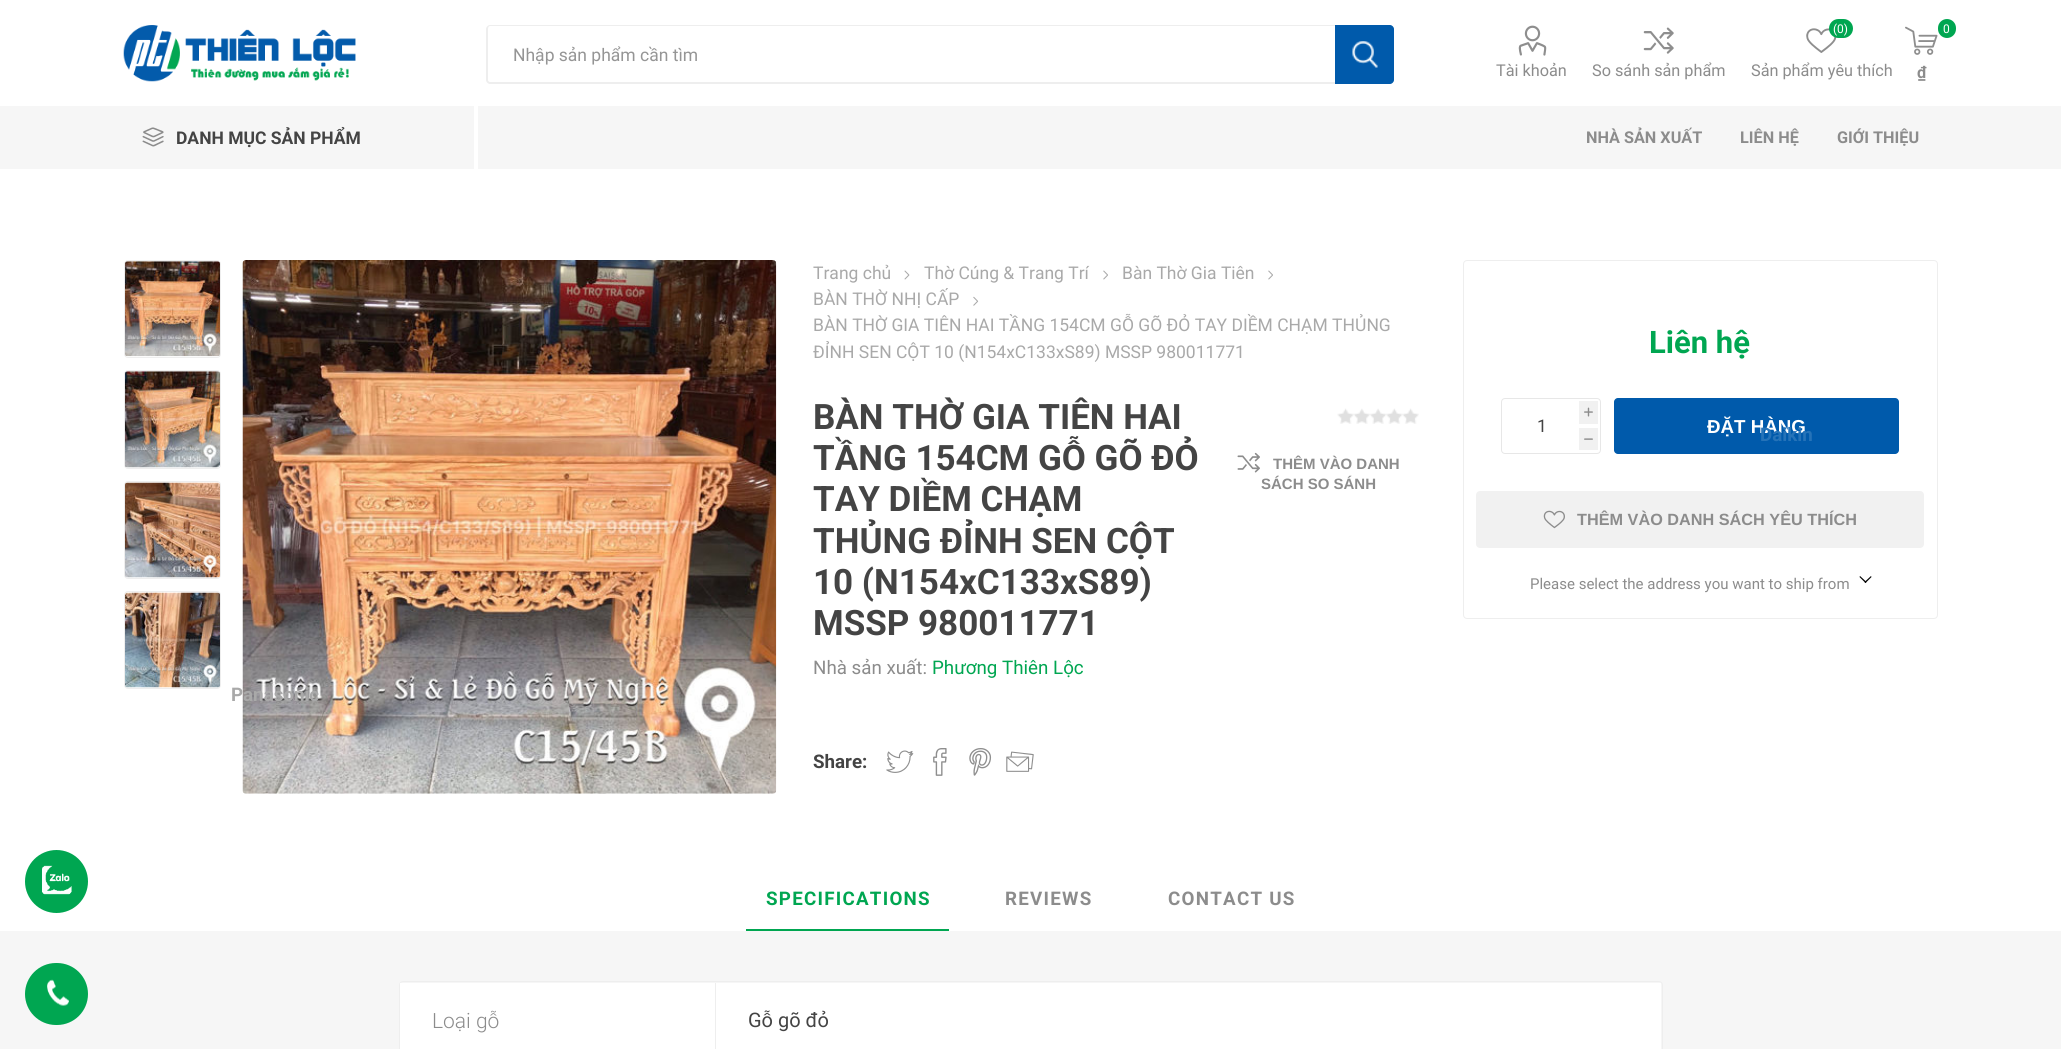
#include <cairo.h>
#include <math.h>
#include <stddef.h>

typedef struct { double x, y; const char *s; } line_t;

static void ink(cairo_t *ctx, unsigned color) {
    cairo_set_source_rgb(ctx, (color >> 16) / 255.0, (color >> 8 & 255) / 255.0, (color & 255) / 255.0);
}

static void write_spaced(cairo_t *ctx, double x, double y, const char *s, double letter, double word) {
    cairo_move_to(ctx, x, y);
    while (*s) {
        char ch[5] = {0};
        int n = 0;
        do ch[n++] = *s++; while ((*s & 0xC0) == 0x80);
        cairo_show_text(ctx, ch);
        cairo_rel_move_to(ctx, letter + word * (*ch == ' '), 0);
    }
}

static void round_path(cairo_t *ctx, double x, double y, double w, double h, double r) {
    cairo_new_sub_path(ctx);
    cairo_arc(ctx, x + w - r, y + h - r, r, 0, M_PI / 2);
    cairo_arc(ctx, x + r, y + h - r, r, M_PI / 2, M_PI);
    cairo_arc(ctx, x + r, y + r, r, M_PI, 1.5 * M_PI);
    cairo_arc(ctx, x + w - r, y + r, r, 1.5 * M_PI, 2 * M_PI);
    cairo_close_path(ctx);
}

static void paste(cairo_t *ctx, const char *path, double x, double y, double w, double h) {
    cairo_surface_t *image = cairo_image_surface_create_from_png(path);
    cairo_save(ctx);
    cairo_set_source_surface(ctx, image, x, y);
    cairo_rectangle(ctx, x, y, w, h);
    cairo_fill(ctx);
    cairo_restore(ctx);
    cairo_surface_destroy(image);
}

int main(void) {
    cairo_surface_t *surface = cairo_image_surface_create(CAIRO_FORMAT_RGB24, 2061, 1049);
    cairo_t *ctx = cairo_create(surface);
    cairo_font_options_t *options = cairo_font_options_create();
    cairo_font_options_set_hint_metrics(options, CAIRO_HINT_METRICS_OFF);
    cairo_font_options_set_hint_style(options, CAIRO_HINT_STYLE_NONE);
    cairo_set_font_options(ctx, options);
    cairo_set_miter_limit(ctx, 4);
    ink(ctx, 0xFFFFFF);
    cairo_paint(ctx);
    paste(ctx, "media/1.png", 123, 25, 233, 57);
    ink(ctx, 0xEEEEEE);
    cairo_set_fill_rule(ctx, CAIRO_FILL_RULE_EVEN_ODD);
    cairo_new_path(ctx);
    cairo_move_to(ctx, 490, 25);
    cairo_line_to(ctx, 1335, 25);
    cairo_line_to(ctx, 1335, 84);
    cairo_line_to(ctx, 490, 84);
    cairo_curve_to(ctx, 488, 84, 486, 82, 486, 80);
    cairo_line_to(ctx, 486, 29);
    cairo_curve_to(ctx, 486, 27, 488, 25, 490, 25);
    cairo_close_path(ctx);
    cairo_move_to(ctx, 490, 26);
    cairo_line_to(ctx, 1335, 26);
    cairo_line_to(ctx, 1335, 82);
    cairo_line_to(ctx, 490, 82);
    cairo_curve_to(ctx, 489, 82, 488, 81, 488, 80);
    cairo_line_to(ctx, 488, 29);
    cairo_curve_to(ctx, 488, 27, 489, 26, 490, 26);
    cairo_close_path(ctx);
    cairo_fill(ctx);
    cairo_select_font_face(ctx, "Roboto", CAIRO_FONT_SLANT_NORMAL, CAIRO_FONT_WEIGHT_NORMAL);
    cairo_set_font_size(ctx, 17.5);
    ink(ctx, 0x959595);
    cairo_move_to(ctx, 513, 61);
    cairo_show_text(ctx, "Nhập sản phẩm cần tìm");
    ink(ctx, 0x005AAB);
    cairo_new_path(ctx);
    cairo_move_to(ctx, 1335, 25);
    cairo_line_to(ctx, 1390, 25);
    cairo_curve_to(ctx, 1392, 25, 1394, 27, 1394, 29);
    cairo_line_to(ctx, 1394, 80);
    cairo_curve_to(ctx, 1394, 82, 1392, 84, 1390, 84);
    cairo_line_to(ctx, 1335, 84);
    cairo_close_path(ctx);
    cairo_fill(ctx);
    paste(ctx, "media/2.png", 1352, 41, 26, 27);
    paste(ctx, "media/3.png", 1518, 25, 29, 31);
    cairo_set_font_size(ctx, 16.25);
    ink(ctx, 0x8C8C8C);
    cairo_move_to(ctx, 1496, 76);
    cairo_show_text(ctx, "Tài khoản");
    paste(ctx, "media/4.png", 1643, 27, 31, 27);
    cairo_move_to(ctx, 1592, 76);
    cairo_show_text(ctx, "So sánh sản phẩm");
    paste(ctx, "media/5.png", 1806, 28, 31, 25);
    ink(ctx, 0x00A651);
    round_path(ctx, 1829, 19, 24, 19, 9.5);
    cairo_fill(ctx);
    cairo_set_font_size(ctx, 12);
    ink(ctx, 0xFFFFFF);
    cairo_move_to(ctx, 1833, 33);
    cairo_show_text(ctx, "(0)");
    cairo_set_font_size(ctx, 16.25);
    ink(ctx, 0x8C8C8C);
    cairo_move_to(ctx, 1751, 76);
    cairo_show_text(ctx, "Sản phẩm yêu thích");
    paste(ctx, "media/6.png", 1905, 26, 33, 29);
    ink(ctx, 0x00A651);
    round_path(ctx, 1938, 19, 18, 19, 9);
    cairo_fill(ctx);
    cairo_set_font_size(ctx, 12);
    ink(ctx, 0xFFFFFF);
    cairo_move_to(ctx, 1943, 33);
    cairo_show_text(ctx, "0");
    cairo_select_font_face(ctx, "Roboto", CAIRO_FONT_SLANT_NORMAL, CAIRO_FONT_WEIGHT_BOLD);
    cairo_set_font_size(ctx, 16.25);
    ink(ctx, 0x8C8C8C);
    cairo_move_to(ctx, 1917, 78);
    cairo_show_text(ctx, "₫");
    ink(ctx, 0xF6F6F6);
    cairo_rectangle(ctx, 0, 106, 2061, 63);
    cairo_fill(ctx);
    ink(ctx, 0xFFFFFF);
    cairo_rectangle(ctx, 474, 106, 4, 63);
    cairo_fill(ctx);
    paste(ctx, "media/7.png", 142, 127, 22, 20);
    cairo_set_font_size(ctx, 17.5);
    ink(ctx, 0x444444);
    cairo_move_to(ctx, 176, 144);
    cairo_show_text(ctx, "DANH MỤC SẢN PHẨM");
    cairo_set_font_size(ctx, 16.25);
    ink(ctx, 0x8C8C8C);
    cairo_move_to(ctx, 1586, 143);
    cairo_show_text(ctx, "NHÀ SẢN XUẤT");
    round_path(ctx, 1463.5, 260.5, 474, 358, 3.5);
    ink(ctx, 0xEEEEEE);
    cairo_set_line_width(ctx, 1);
    cairo_stroke(ctx);
    ink(ctx, 0x005AAB);
    round_path(ctx, 1614, 398, 285, 56, 4);
    cairo_fill(ctx);
    cairo_select_font_face(ctx, "Liberation Sans", CAIRO_FONT_SLANT_NORMAL, CAIRO_FONT_WEIGHT_BOLD);
    cairo_set_font_size(ctx, 18.75);
    ink(ctx, 0xFFFFFF);
    cairo_move_to(ctx, 1707, 433);
    cairo_show_text(ctx, "ĐẶT HÀNG");
    cairo_select_font_face(ctx, "Roboto", CAIRO_FONT_SLANT_NORMAL, CAIRO_FONT_WEIGHT_BOLD);
    ink(ctx, 0x2673B8);
    cairo_move_to(ctx, 1760, 441);
    cairo_show_text(ctx, "Daikin");
    paste(ctx, "media/14.png", 242, 260, 535, 534);
    ink(ctx, 0xA9A9A9);
    cairo_move_to(ctx, 231, 701);
    cairo_show_text(ctx, "Panasonic");
    cairo_set_font_size(ctx, 16.25);
    ink(ctx, 0x8C8C8C);
    cairo_move_to(ctx, 1740, 143);
    cairo_show_text(ctx, "LIÊN HỆ");
    cairo_move_to(ctx, 1837, 143);
    cairo_show_text(ctx, "GIỚI THIỆU");
    ink(ctx, 0x00A651);
    cairo_new_path(ctx);
    cairo_arc(ctx, 56.5, 881.5, 31.5, 0, 2 * M_PI);
    cairo_fill(ctx);
    paste(ctx, "media/8.png", 42, 865, 30, 30);
    ink(ctx, 0xF6F6F6);
    cairo_rectangle(ctx, 0, 931, 2061, 118);
    cairo_fill(ctx);
    ink(ctx, 0x00A651);
    round_path(ctx, 25, 963, 63, 62, 31);
    cairo_fill(ctx);
    paste(ctx, "media/9.png", 47, 979, 22, 27);
    round_path(ctx, 124.5, 260.5, 96, 97, 3.5);
    ink(ctx, 0xEEEEEE);
    cairo_stroke(ctx);
    paste(ctx, "media/10.png", 125, 261, 95, 96);
    round_path(ctx, 124.5, 370.5, 96, 98, 3.5);
    cairo_stroke(ctx);
    paste(ctx, "media/11.png", 125, 371, 95, 97);
    round_path(ctx, 124.5, 481.5, 96, 97, 3.5);
    cairo_stroke(ctx);
    paste(ctx, "media/12.png", 125, 482, 95, 96);
    round_path(ctx, 124.5, 591.5, 96, 97, 3.5);
    cairo_stroke(ctx);
    paste(ctx, "media/13.png", 125, 592, 95, 96);
    cairo_select_font_face(ctx, "Roboto", CAIRO_FONT_SLANT_NORMAL, CAIRO_FONT_WEIGHT_NORMAL);
    cairo_set_font_size(ctx, 17.5);
    ink(ctx, 0xA9A9A9);
    cairo_move_to(ctx, 813, 279);
    cairo_show_text(ctx, "Trang chủ");
    paste(ctx, "media/15.png", 904, 270, 6, 10);
    cairo_move_to(ctx, 924, 279);
    cairo_show_text(ctx, "Thờ Cúng & Trang Trí");
    paste(ctx, "media/16.png", 1103, 270, 5, 10);
    cairo_move_to(ctx, 1122, 279);
    cairo_show_text(ctx, "Bàn Thờ Gia Tiên");
    paste(ctx, "media/16.png", 1268, 270, 5, 10);
    cairo_move_to(ctx, 813, 305);
    cairo_show_text(ctx, "BÀN THỜ NHỊ CẤP");
    paste(ctx, "media/17.png", 973, 296, 6, 10);
    cairo_move_to(ctx, 813, 331);
    cairo_show_text(ctx, "BÀN THỜ GIA TIÊN HAI TẦNG 154CM GỖ GÕ ĐỎ TAY DIỀM CHẠM THỦNG");
    cairo_move_to(ctx, 813, 358);
    cairo_show_text(ctx, "ĐỈNH SEN CỘT 10 (N154xC133xS89) MSSP 980011771");
    cairo_select_font_face(ctx, "Roboto", CAIRO_FONT_SLANT_NORMAL, CAIRO_FONT_WEIGHT_BOLD);
    cairo_set_font_size(ctx, 35);
    ink(ctx, 0x444444);
    {
        static const line_t items[] = {
            {813, 429, "BÀN THỜ GIA TIÊN HAI"},
            {813, 470, "TẦNG 154CM GỖ GÕ ĐỎ"},
            {813, 511, "TAY DIỀM CHẠM"},
            {813, 553, "THỦNG ĐỈNH SEN CỘT"},
            {813, 594, "10 (N154xC133xS89)"},
            {813, 635, "MSSP 980011771"},
        };
        for (size_t i = 0; i < sizeof items / sizeof *items; i++) {
            cairo_move_to(ctx, items[i].x, items[i].y);
            cairo_show_text(ctx, items[i].s);
        }
    }
    cairo_select_font_face(ctx, "Roboto", CAIRO_FONT_SLANT_NORMAL, CAIRO_FONT_WEIGHT_NORMAL);
    cairo_set_font_size(ctx, 18.75);
    ink(ctx, 0x8C8C8C);
    cairo_move_to(ctx, 813, 674);
    cairo_show_text(ctx, "Nhà sản xuất:");
    ink(ctx, 0x00A651);
    cairo_move_to(ctx, 932, 674);
    cairo_show_text(ctx, "Phương Thiên Lộc");
    paste(ctx, "media/18.png", 1337, 408, 82, 16);
    paste(ctx, "media/19.png", 1237, 452, 23, 21);
    cairo_select_font_face(ctx, "Liberation Sans", CAIRO_FONT_SLANT_NORMAL, CAIRO_FONT_WEIGHT_BOLD);
    cairo_set_font_size(ctx, 15);
    ink(ctx, 0x8C8C8C);
    cairo_move_to(ctx, 1273, 469);
    cairo_show_text(ctx, "THÊM VÀO DANH");
    cairo_move_to(ctx, 1261, 489);
    cairo_show_text(ctx, "SÁCH SO SÁNH");
    cairo_select_font_face(ctx, "Roboto", CAIRO_FONT_SLANT_NORMAL, CAIRO_FONT_WEIGHT_BOLD);
    cairo_set_font_size(ctx, 31);
    ink(ctx, 0x00A651);
    cairo_move_to(ctx, 1649, 353);
    cairo_show_text(ctx, "Liên hệ");
    round_path(ctx, 1501.5, 398.5, 99, 55, 3.5);
    ink(ctx, 0xE7E7E7);
    cairo_stroke(ctx);
    ink(ctx, 0xF1F1F1);
    cairo_rectangle(ctx, 1579, 401, 19, 23);
    cairo_fill(ctx);
    cairo_select_font_face(ctx, "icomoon", CAIRO_FONT_SLANT_NORMAL, CAIRO_FONT_WEIGHT_NORMAL);
    cairo_set_font_size(ctx, 9);
    ink(ctx, 0x8C8C8C);
    cairo_move_to(ctx, 1584, 416);
    cairo_show_text(ctx, "i");
    cairo_select_font_face(ctx, "Roboto", CAIRO_FONT_SLANT_NORMAL, CAIRO_FONT_WEIGHT_NORMAL);
    cairo_set_font_size(ctx, 17.5);
    ink(ctx, 0x444444);
    cairo_move_to(ctx, 1537, 432);
    cairo_show_text(ctx, "1");
    ink(ctx, 0xF1F1F1);
    cairo_rectangle(ctx, 1579, 428, 19, 22);
    cairo_fill(ctx);
    cairo_select_font_face(ctx, "icomoon", CAIRO_FONT_SLANT_NORMAL, CAIRO_FONT_WEIGHT_NORMAL);
    cairo_set_font_size(ctx, 9);
    ink(ctx, 0x8C8C8C);
    cairo_move_to(ctx, 1584, 443);
    cairo_show_text(ctx, "h");
    ink(ctx, 0xF1F1F1);
    round_path(ctx, 1476, 491, 448, 57, 4);
    cairo_fill(ctx);
    paste(ctx, "media/20.png", 1543, 510, 22, 19);
    cairo_select_font_face(ctx, "Liberation Sans", CAIRO_FONT_SLANT_NORMAL, CAIRO_FONT_WEIGHT_BOLD);
    cairo_set_font_size(ctx, 16.25);
    ink(ctx, 0x8C8C8C);
    cairo_move_to(ctx, 1577, 525);
    cairo_show_text(ctx, "THÊM VÀO DANH SÁCH YÊU THÍCH");
    cairo_select_font_face(ctx, "Roboto", CAIRO_FONT_SLANT_NORMAL, CAIRO_FONT_WEIGHT_NORMAL);
    cairo_set_font_size(ctx, 15);
    cairo_move_to(ctx, 1530, 589);
    cairo_show_text(ctx, "Please select the address you want to ship from");
    ink(ctx, 0x000000);
    cairo_set_fill_rule(ctx, CAIRO_FILL_RULE_WINDING);
    cairo_new_path(ctx);
    cairo_move_to(ctx, 1871, 576);
    cairo_line_to(ctx, 1871.5, 577);
    cairo_line_to(ctx, 1865.5, 583);
    cairo_line_to(ctx, 1864.5, 582);
    cairo_close_path(ctx);
    cairo_fill(ctx);
    cairo_new_path(ctx);
    cairo_move_to(ctx, 1860, 576);
    cairo_line_to(ctx, 1866.5, 582);
    cairo_line_to(ctx, 1865.5, 583);
    cairo_line_to(ctx, 1859.5, 577);
    cairo_close_path(ctx);
    cairo_fill(ctx);
    cairo_select_font_face(ctx, "Roboto", CAIRO_FONT_SLANT_NORMAL, CAIRO_FONT_WEIGHT_BOLD);
    cairo_set_font_size(ctx, 18.75);
    ink(ctx, 0x444444);
    cairo_move_to(ctx, 813, 768);
    cairo_show_text(ctx, "Share:");
    paste(ctx, "media/21.png", 886, 750, 28, 23);
    paste(ctx, "media/22.png", 933, 748, 14, 28);
    paste(ctx, "media/23.png", 969, 748, 23, 28);
    paste(ctx, "media/24.png", 1006, 751, 28, 21);
    ink(ctx, 0x00A651);
    cairo_rectangle(ctx, 746, 929, 203, 2);
    cairo_fill(ctx);
    write_spaced(ctx, 766, 905, "SPECIFICATIONS", 1.25, 0);
    ink(ctx, 0x8C8C8C);
    write_spaced(ctx, 1005, 905, "REVIEWS", 1.25, 0);
    write_spaced(ctx, 1168, 905, "CONTACT US", 1.25, 0);
    round_path(ctx, 399.5, 981.5, 1263, 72, 3.5);
    ink(ctx, 0xEEEEEE);
    cairo_stroke(ctx);
    ink(ctx, 0xFFFFFF);
    cairo_rectangle(ctx, 400, 983, 315, 66);
    cairo_fill(ctx);
    cairo_select_font_face(ctx, "Roboto Light", CAIRO_FONT_SLANT_NORMAL, CAIRO_FONT_WEIGHT_NORMAL);
    cairo_set_font_size(ctx, 21);
    ink(ctx, 0x8C8C8C);
    cairo_move_to(ctx, 432, 1028);
    cairo_show_text(ctx, "Loại gỗ");
    ink(ctx, 0xFFFFFF);
    cairo_rectangle(ctx, 716, 983, 945, 66);
    cairo_fill(ctx);
    ink(ctx, 0xEEEEEE);
    cairo_rectangle(ctx, 715, 983, 1, 66);
    cairo_fill(ctx);
    cairo_select_font_face(ctx, "Roboto", CAIRO_FONT_SLANT_NORMAL, CAIRO_FONT_WEIGHT_NORMAL);
    cairo_set_font_size(ctx, 20);
    ink(ctx, 0x444444);
    cairo_move_to(ctx, 748, 1027);
    cairo_show_text(ctx, "Gỗ gõ đỏ");
    cairo_surface_write_to_png(surface, "image.png");
    cairo_font_options_destroy(options);
    cairo_destroy(ctx);
    cairo_surface_destroy(surface);
    return 0;
}
